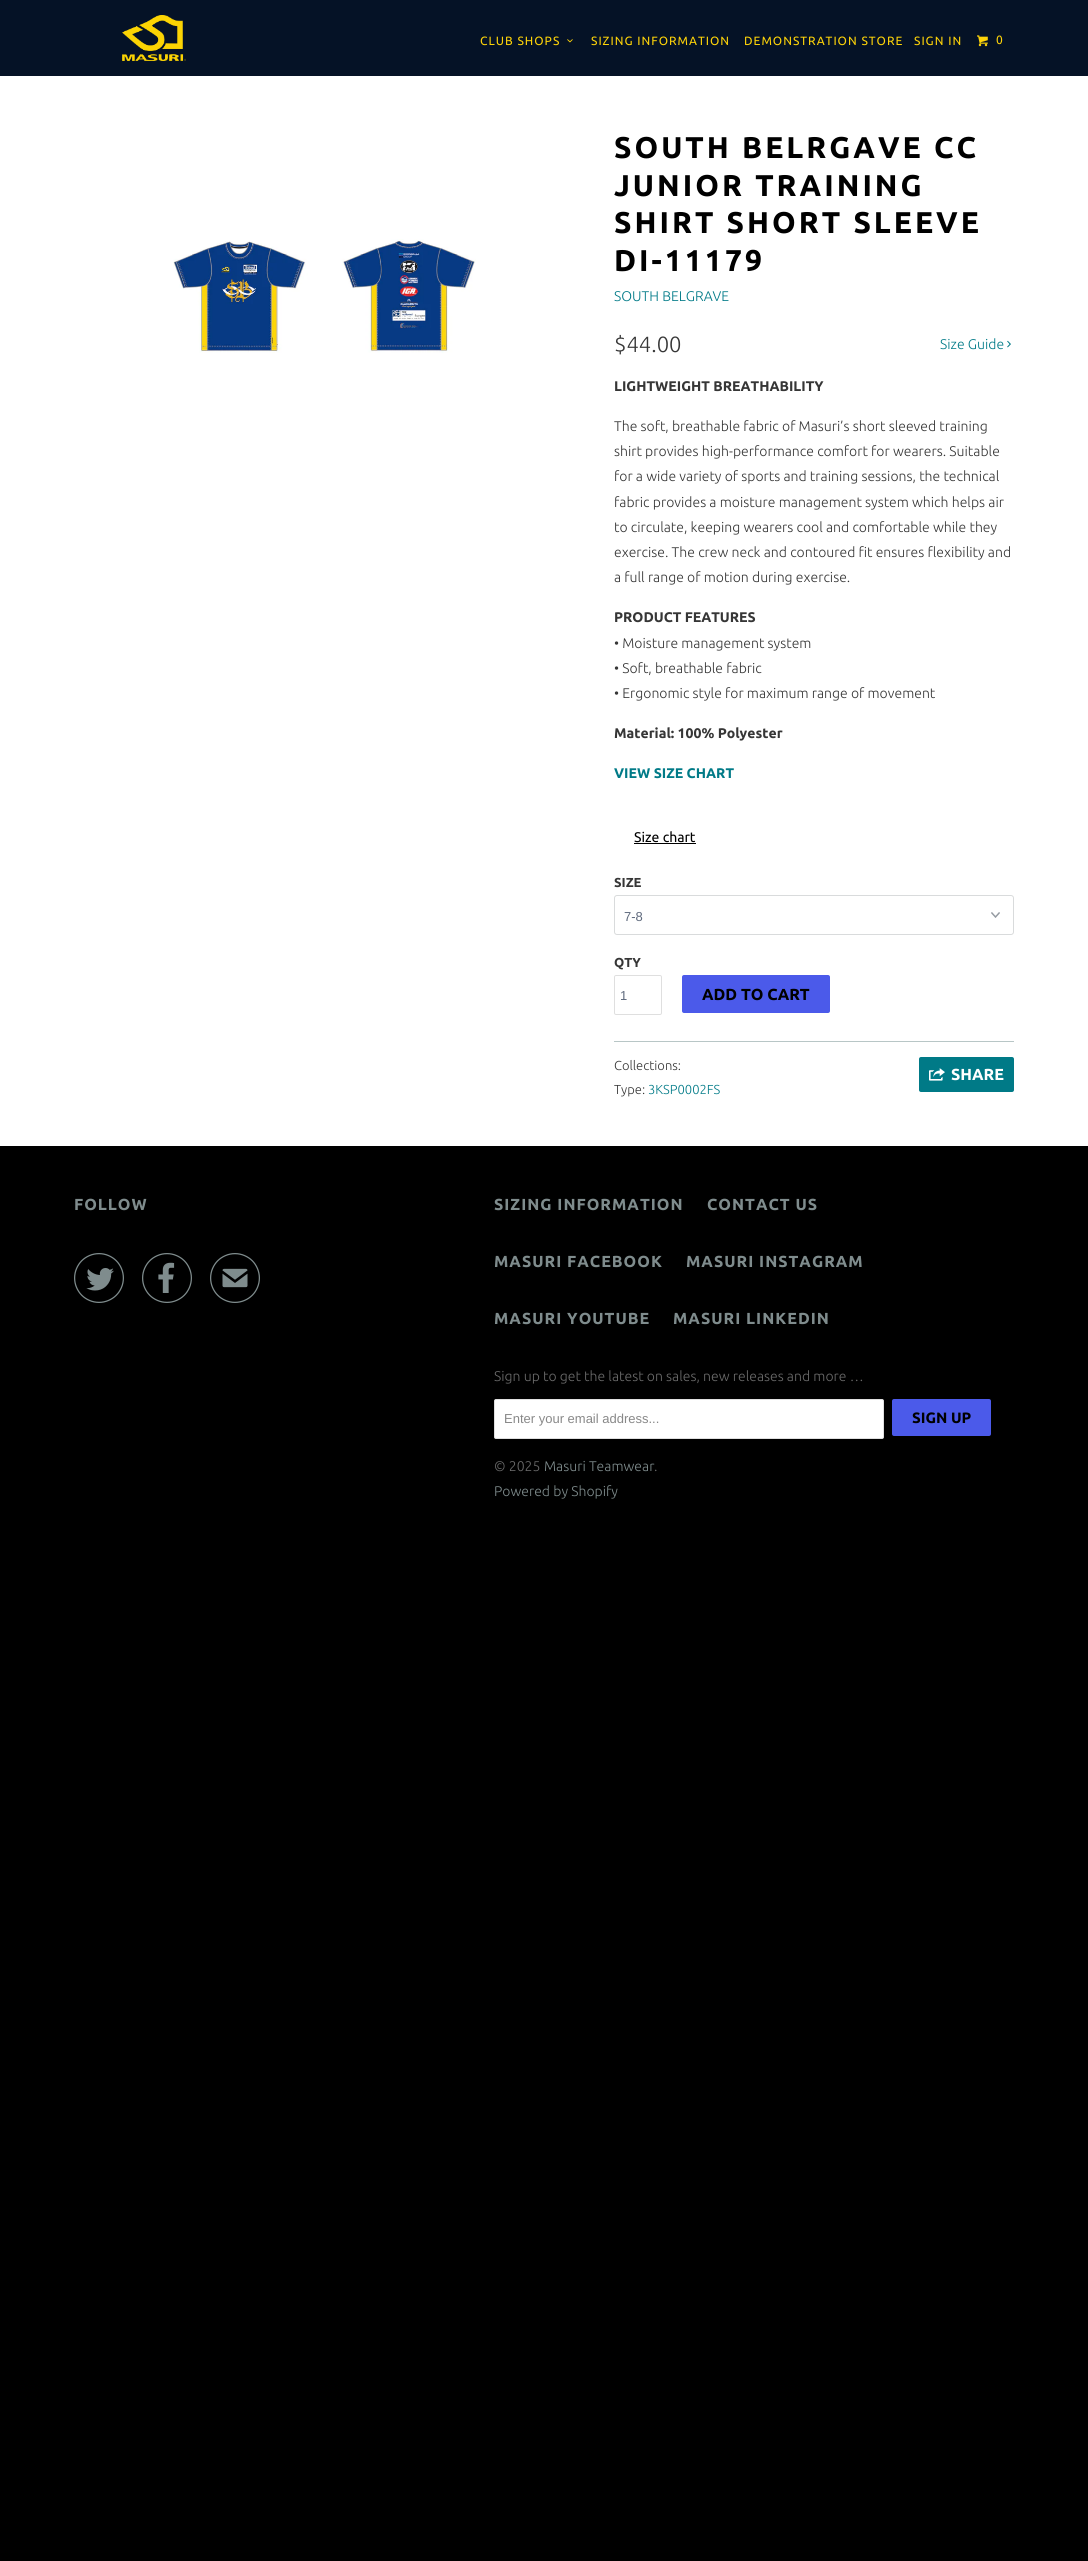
#include <cairo.h>
#include <math.h>
#include <stddef.h>

typedef struct { double x, y; const char *s; } line_t;

static void ink(cairo_t *ctx, unsigned color) {
    cairo_set_source_rgb(ctx, (color >> 16) / 255.0, (color >> 8 & 255) / 255.0, (color & 255) / 255.0);
}

static void write_spaced(cairo_t *ctx, double x, double y, const char *s, double letter, double word) {
    cairo_move_to(ctx, x, y);
    while (*s) {
        char ch[5] = {0};
        int n = 0;
        do ch[n++] = *s++; while ((*s & 0xC0) == 0x80);
        cairo_show_text(ctx, ch);
        cairo_rel_move_to(ctx, letter + word * (*ch == ' '), 0);
    }
}

static void round_path(cairo_t *ctx, double x, double y, double w, double h, double r) {
    cairo_new_sub_path(ctx);
    cairo_arc(ctx, x + w - r, y + h - r, r, 0, M_PI / 2);
    cairo_arc(ctx, x + r, y + h - r, r, M_PI / 2, M_PI);
    cairo_arc(ctx, x + r, y + r, r, M_PI, 1.5 * M_PI);
    cairo_arc(ctx, x + w - r, y + r, r, 1.5 * M_PI, 2 * M_PI);
    cairo_close_path(ctx);
}

static void paste(cairo_t *ctx, const char *path, double x, double y, double w, double h) {
    cairo_surface_t *image = cairo_image_surface_create_from_png(path);
    cairo_save(ctx);
    cairo_set_source_surface(ctx, image, x, y);
    cairo_rectangle(ctx, x, y, w, h);
    cairo_fill(ctx);
    cairo_restore(ctx);
    cairo_surface_destroy(image);
}

int main(void) {
    cairo_surface_t *surface = cairo_image_surface_create(CAIRO_FORMAT_RGB24, 1088, 2561);
    cairo_t *ctx = cairo_create(surface);
    cairo_font_options_t *options = cairo_font_options_create();
    cairo_font_options_set_hint_metrics(options, CAIRO_HINT_METRICS_OFF);
    cairo_font_options_set_hint_style(options, CAIRO_HINT_STYLE_NONE);
    cairo_set_font_options(ctx, options);
    cairo_set_miter_limit(ctx, 4);
    ink(ctx, 0x000000);
    cairo_paint(ctx);
    ink(ctx, 0xFFFFFF);
    cairo_rectangle(ctx, 0, 76, 1088, 1070);
    cairo_fill(ctx);
    ink(ctx, 0x051226);
    cairo_rectangle(ctx, 0, 0, 1088, 76);
    cairo_fill(ctx);
    paste(ctx, "media/1.png", 122, 15, 64, 46);
    cairo_select_font_face(ctx, "Ubuntu", CAIRO_FONT_SLANT_NORMAL, CAIRO_FONT_WEIGHT_NORMAL);
    cairo_set_font_size(ctx, 12);
    ink(ctx, 0xFED308);
    write_spaced(ctx, 480, 45, "CLUB SHOPS", 1, 0);
    paste(ctx, "media/2.png", 567, 39, 6, 4);
    {
        static const line_t items[] = {
            {591, 45, "SIZING INFORMATION"},
            {744, 45, "DEMONSTRATION STORE"},
            {914, 45, "SIGN IN"},
        };
        for (size_t i = 0; i < sizeof items / sizeof *items; i++) {
            write_spaced(ctx, items[i].x, items[i].y, items[i].s, 1, 0);
        }
    }
    paste(ctx, "media/3.png", 977, 35, 11, 12);
    write_spaced(ctx, 996, 44, "0", 1, 0);
    paste(ctx, "media/4.png", 173, 239, 303, 114);
    cairo_select_font_face(ctx, "Ubuntu", CAIRO_FONT_SLANT_NORMAL, CAIRO_FONT_WEIGHT_BOLD);
    cairo_set_font_size(ctx, 30);
    ink(ctx, 0x000000);
    {
        static const line_t items[] = {
            {614, 158, "SOUTH BELRGAVE CC"},
            {614, 196, "JUNIOR TRAINING"},
            {614, 233, "SHIRT SHORT SLEEVE"},
            {614, 271, "DI-11179"},
        };
        for (size_t i = 0; i < sizeof items / sizeof *items; i++) {
            write_spaced(ctx, items[i].x, items[i].y, items[i].s, 3, 0);
        }
    }
    cairo_select_font_face(ctx, "Ubuntu Light", CAIRO_FONT_SLANT_NORMAL, CAIRO_FONT_WEIGHT_NORMAL);
    cairo_set_font_size(ctx, 14);
    ink(ctx, 0x007A87);
    cairo_move_to(ctx, 614, 301);
    cairo_show_text(ctx, "SOUTH BELGRAVE");
    cairo_set_font_size(ctx, 22);
    ink(ctx, 0x363636);
    cairo_move_to(ctx, 614, 352);
    cairo_show_text(ctx, "$44.00");
    cairo_set_font_size(ctx, 14);
    ink(ctx, 0x007A87);
    cairo_move_to(ctx, 940, 349);
    cairo_show_text(ctx, "Size Guide");
    paste(ctx, "media/5.png", 1007, 340, 4, 8);
    cairo_select_font_face(ctx, "Ubuntu", CAIRO_FONT_SLANT_NORMAL, CAIRO_FONT_WEIGHT_BOLD);
    ink(ctx, 0x363636);
    cairo_move_to(ctx, 614, 391);
    cairo_show_text(ctx, "LIGHTWEIGHT BREATHABILITY");
    cairo_select_font_face(ctx, "Ubuntu Light", CAIRO_FONT_SLANT_NORMAL, CAIRO_FONT_WEIGHT_NORMAL);
    {
        static const line_t items[] = {
            {614, 431, "The soft, breathable fabric of Masuri’s short sleeved training"},
            {614, 456, "shirt provides high-performance comfort for wearers. Suitable"},
            {614, 481, "for a wide variety of sports and training sessions, the technical"},
            {614, 507, "fabric provides a moisture management system which helps air"},
            {614, 532, "to circulate, keeping wearers cool and comfortable while they"},
            {614, 557, "exercise. The crew neck and contoured fit ensures flexibility and"},
            {614, 582, "a full range of motion during exercise."},
        };
        for (size_t i = 0; i < sizeof items / sizeof *items; i++) {
            cairo_move_to(ctx, items[i].x, items[i].y);
            cairo_show_text(ctx, items[i].s);
        }
    }
    cairo_select_font_face(ctx, "Ubuntu", CAIRO_FONT_SLANT_NORMAL, CAIRO_FONT_WEIGHT_BOLD);
    cairo_move_to(ctx, 614, 622);
    cairo_show_text(ctx, "PRODUCT FEATURES");
    cairo_select_font_face(ctx, "Ubuntu Light", CAIRO_FONT_SLANT_NORMAL, CAIRO_FONT_WEIGHT_NORMAL);
    {
        static const line_t items[] = {
            {614, 648, "• Moisture management system"},
            {614, 673, "• Soft, breathable fabric"},
            {614, 698, "• Ergonomic style for maximum range of movement"},
        };
        for (size_t i = 0; i < sizeof items / sizeof *items; i++) {
            cairo_move_to(ctx, items[i].x, items[i].y);
            cairo_show_text(ctx, items[i].s);
        }
    }
    cairo_select_font_face(ctx, "Ubuntu", CAIRO_FONT_SLANT_NORMAL, CAIRO_FONT_WEIGHT_BOLD);
    cairo_move_to(ctx, 614, 738);
    cairo_show_text(ctx, "Material: 100% Polyester");
    ink(ctx, 0x007A87);
    cairo_move_to(ctx, 614, 778);
    cairo_show_text(ctx, "VIEW SIZE CHART");
    cairo_select_font_face(ctx, "Ubuntu", CAIRO_FONT_SLANT_NORMAL, CAIRO_FONT_WEIGHT_NORMAL);
    ink(ctx, 0x000000);
    cairo_move_to(ctx, 634, 842);
    cairo_show_text(ctx, "Size chart");
    cairo_rectangle(ctx, 634, 843, 62, 1);
    cairo_fill(ctx);
    cairo_select_font_face(ctx, "Ubuntu", CAIRO_FONT_SLANT_NORMAL, CAIRO_FONT_WEIGHT_BOLD);
    cairo_set_font_size(ctx, 13);
    ink(ctx, 0x363636);
    cairo_move_to(ctx, 614, 887);
    cairo_show_text(ctx, "SIZE");
    paste(ctx, "media/6.png", 991, 912, 9, 6);
    round_path(ctx, 614.5, 895.5, 399, 39, 2.5);
    ink(ctx, 0xD9DBDC);
    cairo_set_line_width(ctx, 1);
    cairo_stroke(ctx);
    cairo_select_font_face(ctx, "Liberation Sans", CAIRO_FONT_SLANT_NORMAL, CAIRO_FONT_WEIGHT_NORMAL);
    ink(ctx, 0x5F6A7D);
    cairo_move_to(ctx, 624, 921);
    cairo_show_text(ctx, "7-8");
    cairo_select_font_face(ctx, "Ubuntu", CAIRO_FONT_SLANT_NORMAL, CAIRO_FONT_WEIGHT_BOLD);
    ink(ctx, 0x363636);
    cairo_move_to(ctx, 614, 967);
    cairo_show_text(ctx, "QTY");
    round_path(ctx, 614.5, 975.5, 47, 39, 1.5);
    ink(ctx, 0xDFDFDF);
    cairo_stroke(ctx);
    cairo_select_font_face(ctx, "Liberation Sans", CAIRO_FONT_SLANT_NORMAL, CAIRO_FONT_WEIGHT_NORMAL);
    ink(ctx, 0x5F6A7D);
    cairo_move_to(ctx, 620, 1000);
    cairo_show_text(ctx, "1");
    ink(ctx, 0x4B5AEA);
    round_path(ctx, 682, 975, 148, 38, 2);
    cairo_fill(ctx);
    cairo_select_font_face(ctx, "Ubuntu", CAIRO_FONT_SLANT_NORMAL, CAIRO_FONT_WEIGHT_BOLD);
    cairo_set_font_size(ctx, 16);
    ink(ctx, 0x000000);
    cairo_move_to(ctx, 702, 1000);
    cairo_show_text(ctx, "ADD TO CART");
    ink(ctx, 0xB8C6C6);
    cairo_rectangle(ctx, 614, 1041, 400, 1);
    cairo_fill(ctx);
    cairo_select_font_face(ctx, "Ubuntu Light", CAIRO_FONT_SLANT_NORMAL, CAIRO_FONT_WEIGHT_NORMAL);
    cairo_set_font_size(ctx, 13);
    ink(ctx, 0x363636);
    cairo_move_to(ctx, 614, 1070);
    cairo_show_text(ctx, "Collections:");
    ink(ctx, 0x007A87);
    round_path(ctx, 919, 1057, 95, 35, 2);
    cairo_fill(ctx);
    paste(ctx, "media/7.png", 929, 1068, 16, 13);
    cairo_select_font_face(ctx, "Ubuntu", CAIRO_FONT_SLANT_NORMAL, CAIRO_FONT_WEIGHT_BOLD);
    cairo_set_font_size(ctx, 16);
    ink(ctx, 0xFFFFFF);
    cairo_move_to(ctx, 951, 1080);
    cairo_show_text(ctx, "SHARE");
    cairo_select_font_face(ctx, "Ubuntu Light", CAIRO_FONT_SLANT_NORMAL, CAIRO_FONT_WEIGHT_NORMAL);
    cairo_set_font_size(ctx, 13);
    ink(ctx, 0x363636);
    cairo_move_to(ctx, 614, 1094);
    cairo_show_text(ctx, "Type:");
    ink(ctx, 0x007A87);
    cairo_move_to(ctx, 648, 1094);
    cairo_show_text(ctx, "3KSP0002FS");
    cairo_select_font_face(ctx, "Ubuntu", CAIRO_FONT_SLANT_NORMAL, CAIRO_FONT_WEIGHT_BOLD);
    cairo_set_font_size(ctx, 16);
    ink(ctx, 0x7F8C8D);
    write_spaced(ctx, 74, 1210, "FOLLOW", 1, 0);
    paste(ctx, "media/8.png", 74, 1253, 50, 50);
    paste(ctx, "media/9.png", 142, 1253, 50, 50);
    cairo_select_font_face(ctx, "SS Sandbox", CAIRO_FONT_SLANT_NORMAL, CAIRO_FONT_WEIGHT_NORMAL);
    cairo_set_font_size(ctx, 50);
    cairo_move_to(ctx, 210, 1303);
    cairo_show_text(ctx, "✉");
    cairo_select_font_face(ctx, "Ubuntu", CAIRO_FONT_SLANT_NORMAL, CAIRO_FONT_WEIGHT_BOLD);
    cairo_set_font_size(ctx, 16);
    {
        static const line_t items[] = {
            {494, 1210, "SIZING INFORMATION"},
            {707, 1210, "CONTACT US"},
            {494, 1267, "MASURI FACEBOOK"},
            {686, 1267, "MASURI INSTAGRAM"},
            {494, 1324, "MASURI YOUTUBE"},
            {673, 1324, "MASURI LINKEDIN"},
        };
        for (size_t i = 0; i < sizeof items / sizeof *items; i++) {
            write_spaced(ctx, items[i].x, items[i].y, items[i].s, 1, 0);
        }
    }
    cairo_select_font_face(ctx, "Ubuntu Light", CAIRO_FONT_SLANT_NORMAL, CAIRO_FONT_WEIGHT_NORMAL);
    cairo_set_font_size(ctx, 14);
    ink(ctx, 0x6B6B6B);
    cairo_move_to(ctx, 494, 1381);
    cairo_show_text(ctx, "Sign up to get the latest on sales, new releases and more …");
    ink(ctx, 0xFFFFFF);
    round_path(ctx, 494.5, 1399.5, 389, 39, 1.5);
    cairo_fill_preserve(ctx);
    ink(ctx, 0xDFDFDF);
    cairo_stroke(ctx);
    cairo_select_font_face(ctx, "Liberation Sans", CAIRO_FONT_SLANT_NORMAL, CAIRO_FONT_WEIGHT_NORMAL);
    cairo_set_font_size(ctx, 13);
    ink(ctx, 0x888888);
    cairo_move_to(ctx, 504, 1423);
    cairo_show_text(ctx, "Enter your email address...");
    ink(ctx, 0x4B5AEA);
    round_path(ctx, 892, 1399, 99, 37, 2);
    cairo_fill(ctx);
    cairo_select_font_face(ctx, "Ubuntu", CAIRO_FONT_SLANT_NORMAL, CAIRO_FONT_WEIGHT_BOLD);
    cairo_set_font_size(ctx, 15);
    ink(ctx, 0x000000);
    cairo_move_to(ctx, 912, 1423);
    cairo_show_text(ctx, "SIGN UP");
    cairo_select_font_face(ctx, "Ubuntu Light", CAIRO_FONT_SLANT_NORMAL, CAIRO_FONT_WEIGHT_NORMAL);
    cairo_set_font_size(ctx, 14);
    ink(ctx, 0x6B6B6B);
    cairo_move_to(ctx, 494, 1471);
    cairo_show_text(ctx, "© 2025");
    ink(ctx, 0x7F8C8D);
    cairo_move_to(ctx, 544, 1471);
    cairo_show_text(ctx, "Masuri Teamwear");
    ink(ctx, 0x6B6B6B);
    cairo_move_to(ctx, 654, 1471);
    cairo_show_text(ctx, ".");
    ink(ctx, 0x7F8C8D);
    cairo_move_to(ctx, 494, 1496);
    cairo_show_text(ctx, "Powered by Shopify");
    cairo_surface_write_to_png(surface, "image.png");
    cairo_font_options_destroy(options);
    cairo_destroy(ctx);
    cairo_surface_destroy(surface);
    return 0;
}
